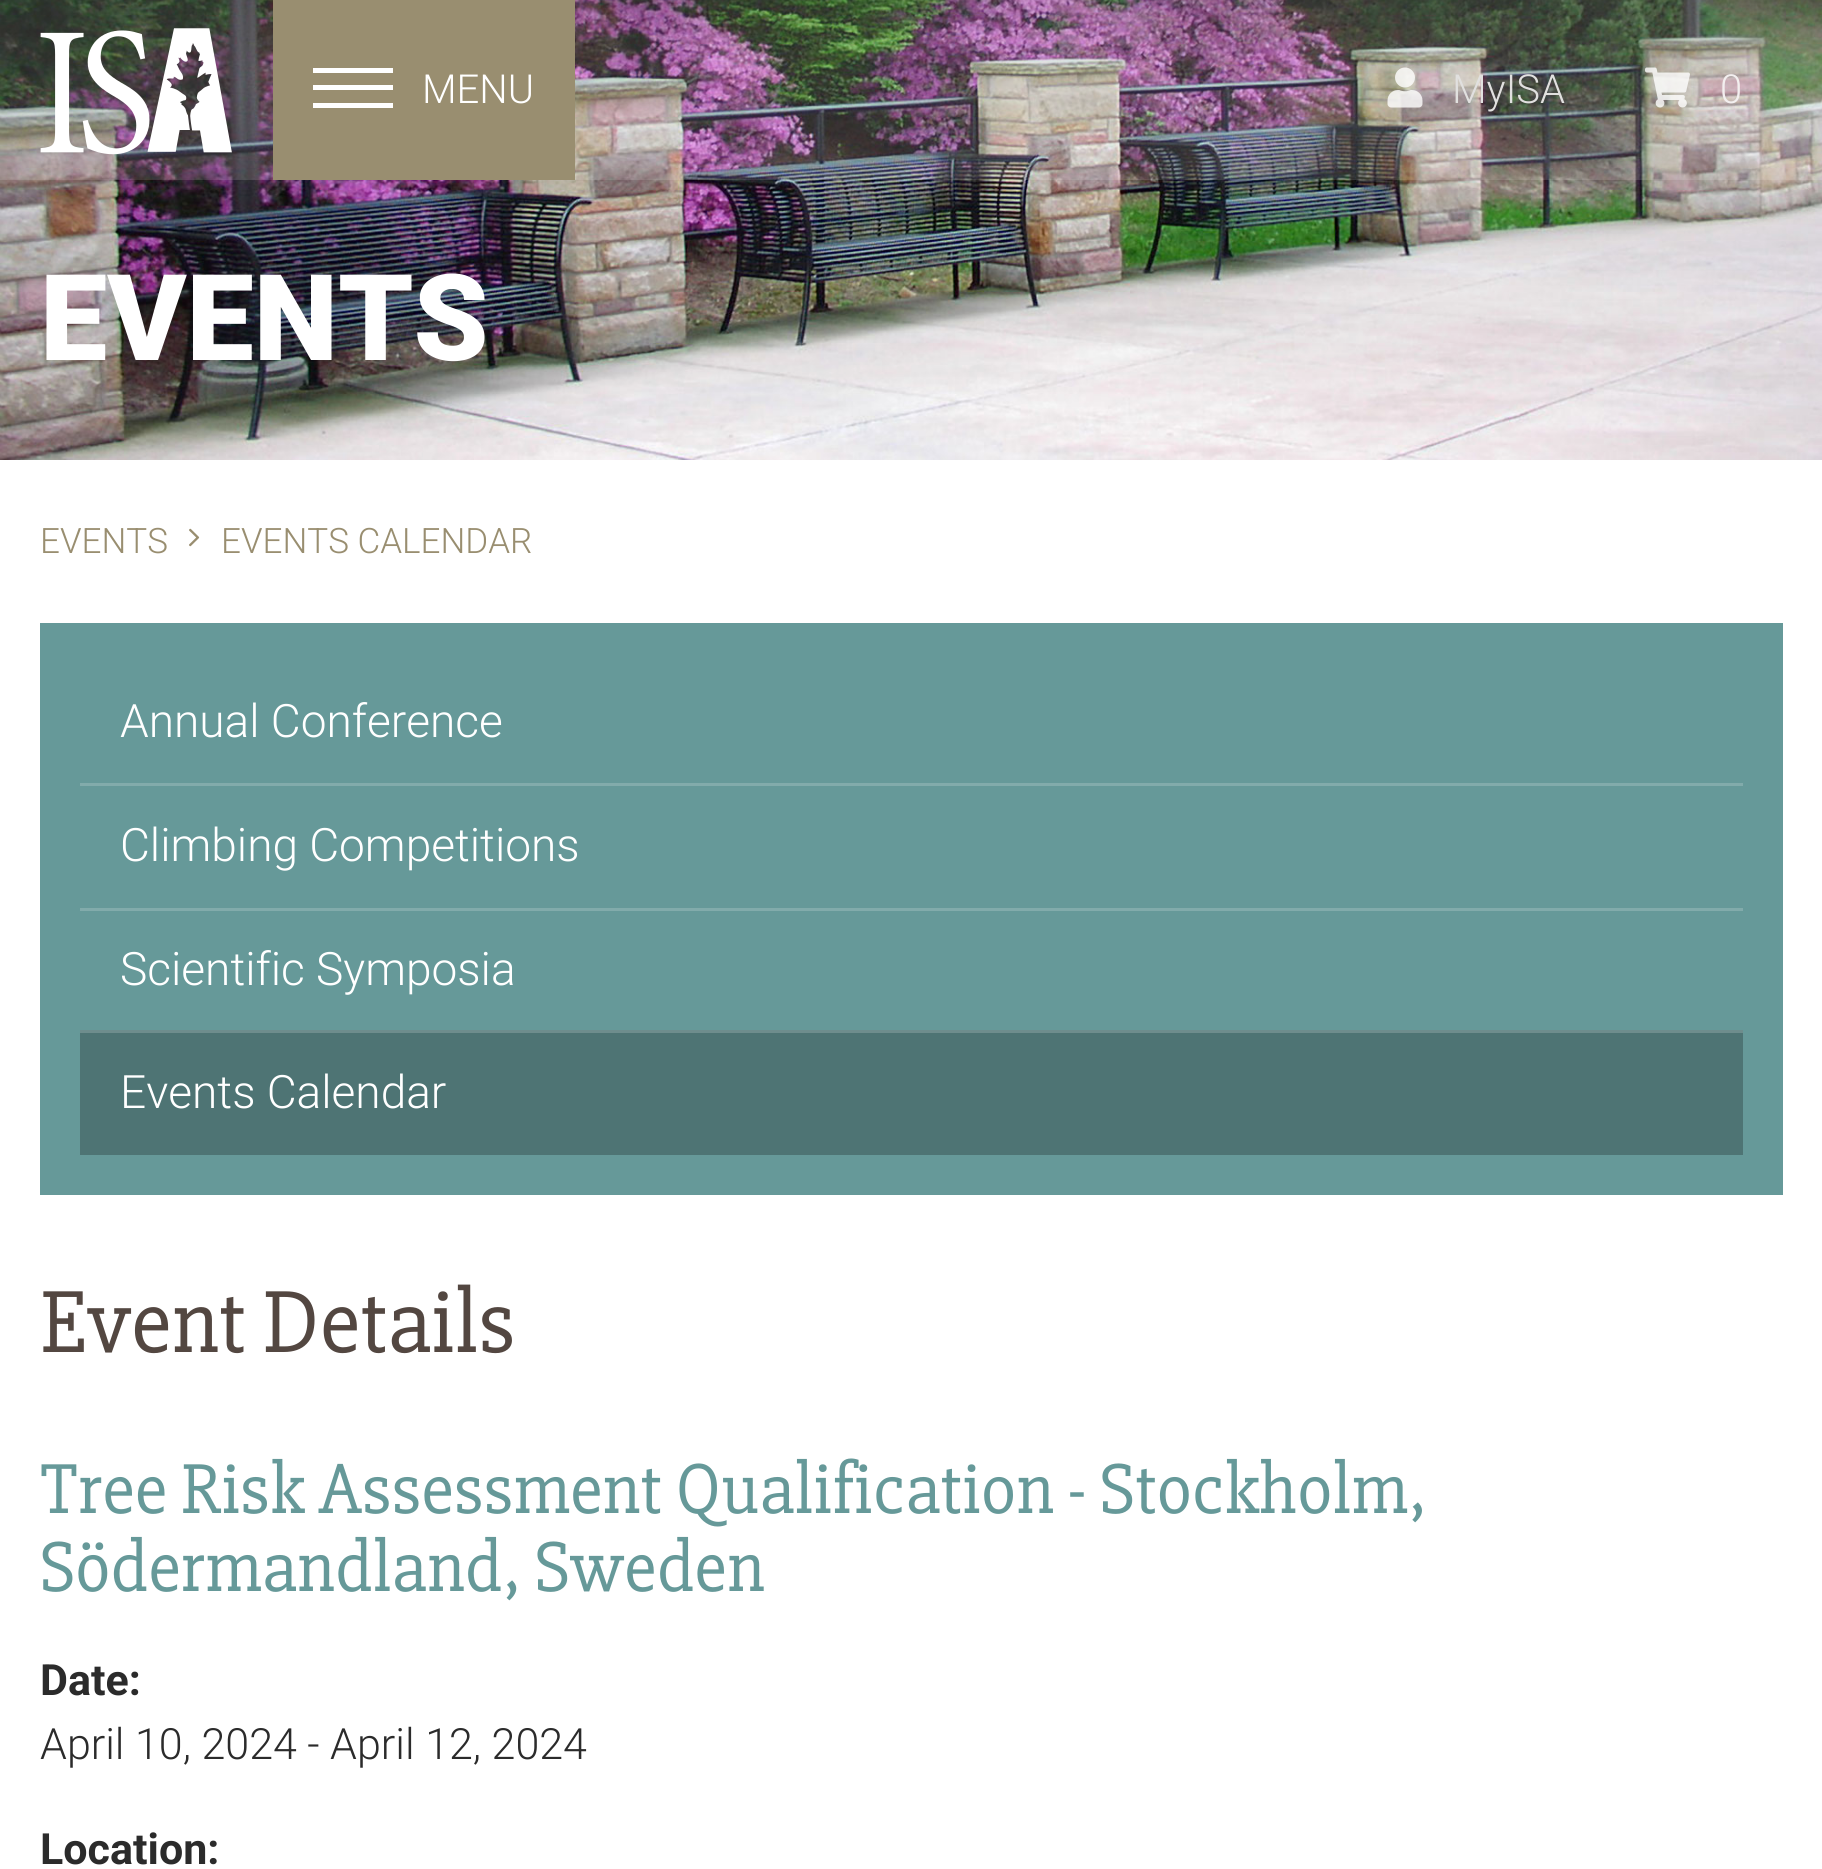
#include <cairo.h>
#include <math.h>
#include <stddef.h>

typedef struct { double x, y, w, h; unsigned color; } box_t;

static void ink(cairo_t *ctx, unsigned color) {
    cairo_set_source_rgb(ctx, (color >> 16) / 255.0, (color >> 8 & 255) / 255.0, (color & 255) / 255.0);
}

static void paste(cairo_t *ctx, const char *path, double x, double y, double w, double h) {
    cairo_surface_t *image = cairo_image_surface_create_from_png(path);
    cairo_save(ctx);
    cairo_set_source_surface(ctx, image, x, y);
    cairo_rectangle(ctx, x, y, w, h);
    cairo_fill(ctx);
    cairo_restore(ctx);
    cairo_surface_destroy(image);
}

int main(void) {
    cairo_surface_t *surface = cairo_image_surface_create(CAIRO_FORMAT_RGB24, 1822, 1869);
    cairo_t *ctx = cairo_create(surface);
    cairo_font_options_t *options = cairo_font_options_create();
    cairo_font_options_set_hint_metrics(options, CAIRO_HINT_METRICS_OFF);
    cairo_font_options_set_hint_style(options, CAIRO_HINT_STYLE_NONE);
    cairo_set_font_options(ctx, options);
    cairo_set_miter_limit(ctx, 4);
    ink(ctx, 0xFFFFFF);
    cairo_paint(ctx);
    paste(ctx, "media/4.png", 0, 0, 1822, 460);
    cairo_set_source_rgba(ctx, 1, 1, 1, 0.14);
    cairo_rectangle(ctx, 0, 0, 1822, 180);
    cairo_fill(ctx);
    paste(ctx, "media/1.png", 40, 28, 192, 127);
    {
        static const box_t items[] = {
            {273, 0, 302, 180, 0x998E70},
            {313, 68, 80, 5, 0xFFFFFF},
            {313, 85, 80, 5, 0xFFFFFF},
            {313, 103, 80, 5, 0xFFFFFF},
        };
        for (size_t i = 0; i < sizeof items / sizeof *items; i++) {
            ink(ctx, items[i].color);
            cairo_rectangle(ctx, items[i].x, items[i].y, items[i].w, items[i].h);
            cairo_fill(ctx);
        }
    }
    cairo_select_font_face(ctx, "Roboto Light", CAIRO_FONT_SLANT_NORMAL, CAIRO_FONT_WEIGHT_NORMAL);
    cairo_set_font_size(ctx, 40);
    cairo_move_to(ctx, 422, 103);
    cairo_show_text(ctx, "MENU");
    paste(ctx, "media/2.png", 1387, 67, 36, 41);
    ink(ctx, 0xE1E0DF);
    cairo_move_to(ctx, 1452, 103);
    cairo_show_text(ctx, "MyISA");
    paste(ctx, "media/3.png", 1645, 67, 45, 41);
    ink(ctx, 0xF3EFEF);
    cairo_move_to(ctx, 1720, 103);
    cairo_show_text(ctx, "0");
    cairo_select_font_face(ctx, "Roboto Black", CAIRO_FONT_SLANT_NORMAL, CAIRO_FONT_WEIGHT_NORMAL);
    cairo_set_font_size(ctx, 120);
    ink(ctx, 0xFFFFFF);
    cairo_move_to(ctx, 40, 360);
    cairo_show_text(ctx, "EVENTS");
    cairo_select_font_face(ctx, "Roboto Light", CAIRO_FONT_SLANT_NORMAL, CAIRO_FONT_WEIGHT_NORMAL);
    cairo_set_font_size(ctx, 35);
    ink(ctx, 0x998E70);
    cairo_move_to(ctx, 40, 553);
    cairo_show_text(ctx, "EVENTS");
    paste(ctx, "media/5.png", 189, 528, 11, 19);
    cairo_move_to(ctx, 221, 553);
    cairo_show_text(ctx, "EVENTS CALENDAR");
    ink(ctx, 0x669999);
    cairo_rectangle(ctx, 40, 623, 1743, 572);
    cairo_fill(ctx);
    cairo_set_font_size(ctx, 46);
    ink(ctx, 0xFFFFFF);
    cairo_move_to(ctx, 120, 737);
    cairo_show_text(ctx, "Annual Conference");
    ink(ctx, 0x82ABAB);
    cairo_rectangle(ctx, 80, 783, 1663, 3);
    cairo_fill(ctx);
    ink(ctx, 0xFFFFFF);
    cairo_move_to(ctx, 120, 861);
    cairo_show_text(ctx, "Climbing Competitions");
    ink(ctx, 0x82ABAB);
    cairo_rectangle(ctx, 80, 908, 1663, 3);
    cairo_fill(ctx);
    ink(ctx, 0xFFFFFF);
    cairo_move_to(ctx, 120, 985);
    cairo_show_text(ctx, "Scientific Symposia");
    ink(ctx, 0x4E7474);
    cairo_rectangle(ctx, 80, 1033, 1663, 122);
    cairo_fill(ctx);
    ink(ctx, 0x6E8D8D);
    cairo_rectangle(ctx, 80, 1030, 1663, 3);
    cairo_fill(ctx);
    ink(ctx, 0xFFFFFF);
    cairo_move_to(ctx, 120, 1108);
    cairo_show_text(ctx, "Events Calendar");
    cairo_select_font_face(ctx, "Slabo 27px", CAIRO_FONT_SLANT_NORMAL, CAIRO_FONT_WEIGHT_NORMAL);
    cairo_set_font_size(ctx, 91);
    ink(ctx, 0x534741);
    cairo_move_to(ctx, 40, 1352);
    cairo_show_text(ctx, "Event Details");
    cairo_set_font_size(ctx, 73);
    ink(ctx, 0x669999);
    cairo_move_to(ctx, 40, 1513);
    cairo_show_text(ctx, "Tree Risk Assessment Qualification - Stockholm,");
    cairo_move_to(ctx, 40, 1591);
    cairo_show_text(ctx, "Södermandland, Sweden");
    cairo_select_font_face(ctx, "Roboto", CAIRO_FONT_SLANT_NORMAL, CAIRO_FONT_WEIGHT_BOLD);
    cairo_set_font_size(ctx, 43);
    ink(ctx, 0x2B2B2B);
    cairo_move_to(ctx, 40, 1695);
    cairo_show_text(ctx, "Date:");
    cairo_select_font_face(ctx, "Roboto Light", CAIRO_FONT_SLANT_NORMAL, CAIRO_FONT_WEIGHT_NORMAL);
    cairo_move_to(ctx, 40, 1759);
    cairo_show_text(ctx, "April 10, 2024 - April 12, 2024");
    cairo_select_font_face(ctx, "Roboto", CAIRO_FONT_SLANT_NORMAL, CAIRO_FONT_WEIGHT_BOLD);
    cairo_move_to(ctx, 40, 1864);
    cairo_show_text(ctx, "Location:");
    cairo_surface_write_to_png(surface, "image.png");
    cairo_font_options_destroy(options);
    cairo_destroy(ctx);
    cairo_surface_destroy(surface);
    return 0;
}
